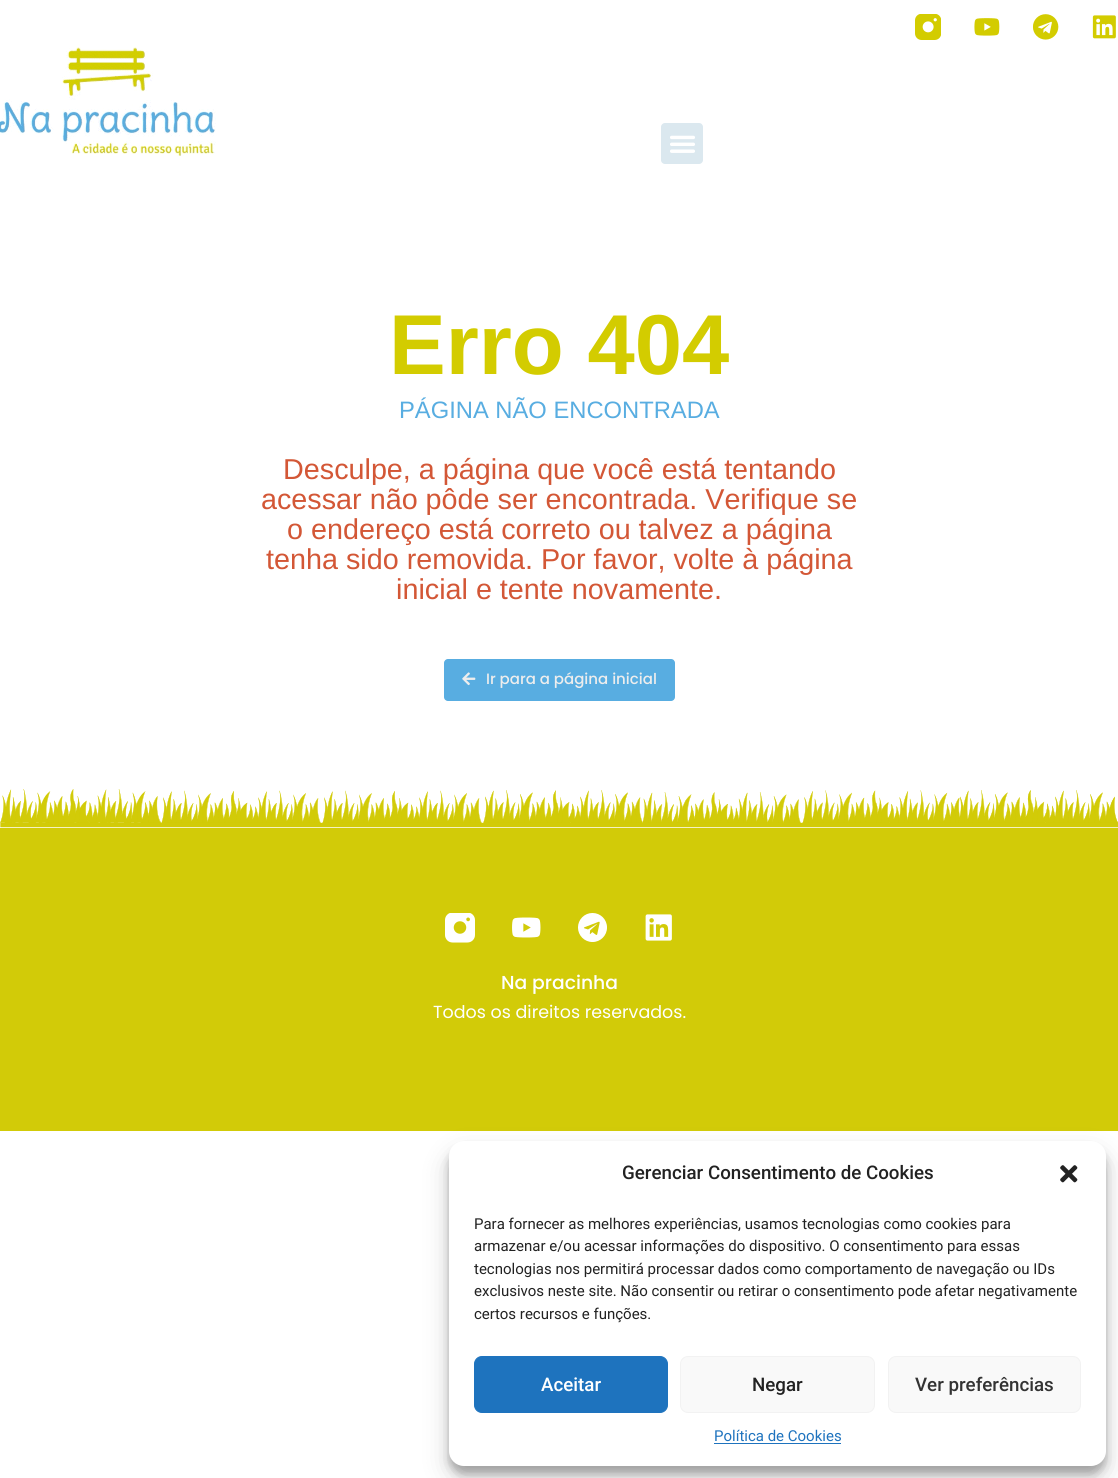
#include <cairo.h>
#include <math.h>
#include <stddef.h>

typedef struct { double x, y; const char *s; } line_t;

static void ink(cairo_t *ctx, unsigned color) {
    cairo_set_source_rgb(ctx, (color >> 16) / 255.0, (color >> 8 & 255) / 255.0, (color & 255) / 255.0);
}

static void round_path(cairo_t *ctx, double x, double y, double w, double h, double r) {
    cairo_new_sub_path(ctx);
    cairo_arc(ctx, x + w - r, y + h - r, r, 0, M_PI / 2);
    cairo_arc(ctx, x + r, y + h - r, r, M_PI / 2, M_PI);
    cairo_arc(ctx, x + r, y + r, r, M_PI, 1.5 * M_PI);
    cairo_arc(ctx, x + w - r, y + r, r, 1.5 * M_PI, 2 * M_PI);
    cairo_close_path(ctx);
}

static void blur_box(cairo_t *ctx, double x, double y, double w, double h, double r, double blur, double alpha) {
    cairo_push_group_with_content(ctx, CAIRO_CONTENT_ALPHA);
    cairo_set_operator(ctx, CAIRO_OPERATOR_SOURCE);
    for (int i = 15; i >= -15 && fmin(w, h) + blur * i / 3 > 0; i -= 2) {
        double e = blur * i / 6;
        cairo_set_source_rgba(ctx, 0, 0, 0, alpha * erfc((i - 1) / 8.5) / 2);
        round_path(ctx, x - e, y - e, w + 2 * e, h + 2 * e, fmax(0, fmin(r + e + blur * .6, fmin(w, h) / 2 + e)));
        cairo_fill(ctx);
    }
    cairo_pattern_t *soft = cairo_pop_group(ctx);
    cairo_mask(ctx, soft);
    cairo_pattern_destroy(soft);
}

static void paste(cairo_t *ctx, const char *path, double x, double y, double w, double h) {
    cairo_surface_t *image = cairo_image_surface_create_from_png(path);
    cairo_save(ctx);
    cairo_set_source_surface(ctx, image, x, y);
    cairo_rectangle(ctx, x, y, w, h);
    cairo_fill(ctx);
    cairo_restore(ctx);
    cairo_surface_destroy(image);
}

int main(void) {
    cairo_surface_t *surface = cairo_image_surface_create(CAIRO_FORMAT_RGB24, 1118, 1478);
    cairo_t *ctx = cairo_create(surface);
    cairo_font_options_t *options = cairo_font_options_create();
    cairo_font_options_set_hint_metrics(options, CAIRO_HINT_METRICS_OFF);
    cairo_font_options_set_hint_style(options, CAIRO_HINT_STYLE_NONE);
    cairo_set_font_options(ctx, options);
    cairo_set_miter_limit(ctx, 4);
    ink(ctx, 0xFFFFFF);
    cairo_paint(ctx);
    paste(ctx, "media/1.png", 915, 14, 26, 26);
    paste(ctx, "media/2.png", 974, 18, 26, 18);
    paste(ctx, "media/3.png", 1033, 14, 26, 26);
    paste(ctx, "media/4.png", 1092, 15, 24, 24);
    paste(ctx, "media/5.png", 0, 47, 216, 109);
    ink(ctx, 0xDBE8EF);
    round_path(ctx, 661, 123, 42, 41, 4);
    cairo_fill(ctx);
    paste(ctx, "media/6.png", 670, 135, 25, 18);
    cairo_select_font_face(ctx, "Liberation Sans", CAIRO_FONT_SLANT_NORMAL, CAIRO_FONT_WEIGHT_BOLD);
    cairo_set_font_size(ctx, 85);
    ink(ctx, 0xD3CC00);
    cairo_move_to(ctx, 389, 374);
    cairo_show_text(ctx, "Erro 404");
    cairo_select_font_face(ctx, "Liberation Sans", CAIRO_FONT_SLANT_NORMAL, CAIRO_FONT_WEIGHT_NORMAL);
    cairo_set_font_size(ctx, 23.75);
    ink(ctx, 0x58ADE1);
    cairo_move_to(ctx, 399, 418);
    cairo_show_text(ctx, "PÁGINA NÃO ENCONTRADA");
    cairo_set_font_size(ctx, 28.75);
    ink(ctx, 0xD35736);
    {
        static const line_t items[] = {
            {283, 479, "Desculpe, a página que você está tentando"},
            {261, 509, "acessar não pôde ser encontrada. Verifique se"},
            {287, 539, "o endereço está correto ou talvez a página"},
            {266, 569, "tenha sido removida. Por favor, volte à página"},
            {396, 599, "inicial e tente novamente."},
        };
        for (size_t i = 0; i < sizeof items / sizeof *items; i++) {
            cairo_move_to(ctx, items[i].x, items[i].y);
            cairo_show_text(ctx, items[i].s);
        }
    }
    ink(ctx, 0x58ADE1);
    round_path(ctx, 444, 659, 231, 42, 4);
    cairo_fill(ctx);
    paste(ctx, "media/7.png", 462, 672, 14, 14);
    cairo_select_font_face(ctx, "Poppins Medium", CAIRO_FONT_SLANT_NORMAL, CAIRO_FONT_WEIGHT_NORMAL);
    cairo_set_font_size(ctx, 15);
    ink(ctx, 0xEDEDED);
    cairo_move_to(ctx, 486, 684);
    cairo_show_text(ctx, "Ir para a página inicial");
    paste(ctx, "media/8.png", 0, 789, 1118, 39);
    ink(ctx, 0xD2CB08);
    cairo_rectangle(ctx, 0, 828, 1118, 303);
    cairo_fill(ctx);
    paste(ctx, "media/9.png", 445, 913, 30, 30);
    paste(ctx, "media/10.png", 512, 917, 29, 21);
    paste(ctx, "media/11.png", 578, 913, 29, 29);
    paste(ctx, "media/12.png", 645, 914, 27, 27);
    cairo_set_font_size(ctx, 18.75);
    ink(ctx, 0xFFFFFF);
    cairo_move_to(ctx, 501, 989);
    cairo_show_text(ctx, "Na pracinha");
    cairo_select_font_face(ctx, "Poppins", CAIRO_FONT_SLANT_NORMAL, CAIRO_FONT_WEIGHT_NORMAL);
    cairo_set_font_size(ctx, 17.5);
    cairo_move_to(ctx, 433, 1018);
    cairo_show_text(ctx, "Todos os direitos reservados.");
    ink(ctx, 0x000000);
    blur_box(ctx, 449, 1149, 657, 325, 15, 4, 0.23);
    blur_box(ctx, 449, 1154, 657, 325, 15, 12.5, 0.19);
    ink(ctx, 0xFFFFFF);
    round_path(ctx, 449, 1141, 657, 325, 15);
    cairo_fill(ctx);
    cairo_select_font_face(ctx, "Roboto Medium", CAIRO_FONT_SLANT_NORMAL, CAIRO_FONT_WEIGHT_NORMAL);
    cairo_set_font_size(ctx, 18.75);
    ink(ctx, 0x222222);
    cairo_move_to(ctx, 622, 1179);
    cairo_show_text(ctx, "Gerenciar Consentimento de Cookies");
    paste(ctx, "media/13.png", 1060, 1165, 18, 18);
    cairo_select_font_face(ctx, "Roboto", CAIRO_FONT_SLANT_NORMAL, CAIRO_FONT_WEIGHT_NORMAL);
    cairo_set_font_size(ctx, 15);
    {
        static const line_t items[] = {
            {474, 1229, "Para fornecer as melhores experiências, usamos tecnologias como cookies para"},
            {474, 1251, "armazenar e/ou acessar informações do dispositivo. O consentimento para essas"},
            {474, 1274, "tecnologias nos permitirá processar dados como comportamento de navegação ou IDs"},
            {474, 1296, "exclusivos neste site. Não consentir ou retirar o consentimento pode afetar negativamente"},
            {474, 1319, "certos recursos e funções."},
        };
        for (size_t i = 0; i < sizeof items / sizeof *items; i++) {
            cairo_move_to(ctx, items[i].x, items[i].y);
            cairo_show_text(ctx, items[i].s);
        }
    }
    ink(ctx, 0x1E73BE);
    round_path(ctx, 474.5, 1356.5, 193, 56, 7.5);
    cairo_fill_preserve(ctx);
    cairo_set_line_width(ctx, 1);
    cairo_stroke(ctx);
    cairo_select_font_face(ctx, "Roboto Medium", CAIRO_FONT_SLANT_NORMAL, CAIRO_FONT_WEIGHT_NORMAL);
    cairo_set_font_size(ctx, 18.75);
    ink(ctx, 0xFFFFFF);
    cairo_move_to(ctx, 541, 1391);
    cairo_show_text(ctx, "Aceitar");
    ink(ctx, 0xF9F9F9);
    round_path(ctx, 680.5, 1356.5, 194, 56, 7.5);
    cairo_fill_preserve(ctx);
    ink(ctx, 0xF2F2F2);
    cairo_stroke(ctx);
    ink(ctx, 0x222222);
    cairo_move_to(ctx, 752, 1391);
    cairo_show_text(ctx, "Negar");
    ink(ctx, 0xF9F9F9);
    round_path(ctx, 888.5, 1356.5, 192, 56, 7.5);
    cairo_fill_preserve(ctx);
    ink(ctx, 0xF2F2F2);
    cairo_stroke(ctx);
    ink(ctx, 0x333333);
    cairo_move_to(ctx, 915, 1391);
    cairo_show_text(ctx, "Ver preferências");
    cairo_select_font_face(ctx, "Roboto", CAIRO_FONT_SLANT_NORMAL, CAIRO_FONT_WEIGHT_NORMAL);
    cairo_set_font_size(ctx, 15);
    ink(ctx, 0x1E73BE);
    cairo_move_to(ctx, 714, 1441);
    cairo_show_text(ctx, "Política de Cookies");
    cairo_rectangle(ctx, 714, 1443, 127, 1);
    cairo_fill(ctx);
    cairo_surface_write_to_png(surface, "image.png");
    cairo_font_options_destroy(options);
    cairo_destroy(ctx);
    cairo_surface_destroy(surface);
    return 0;
}
